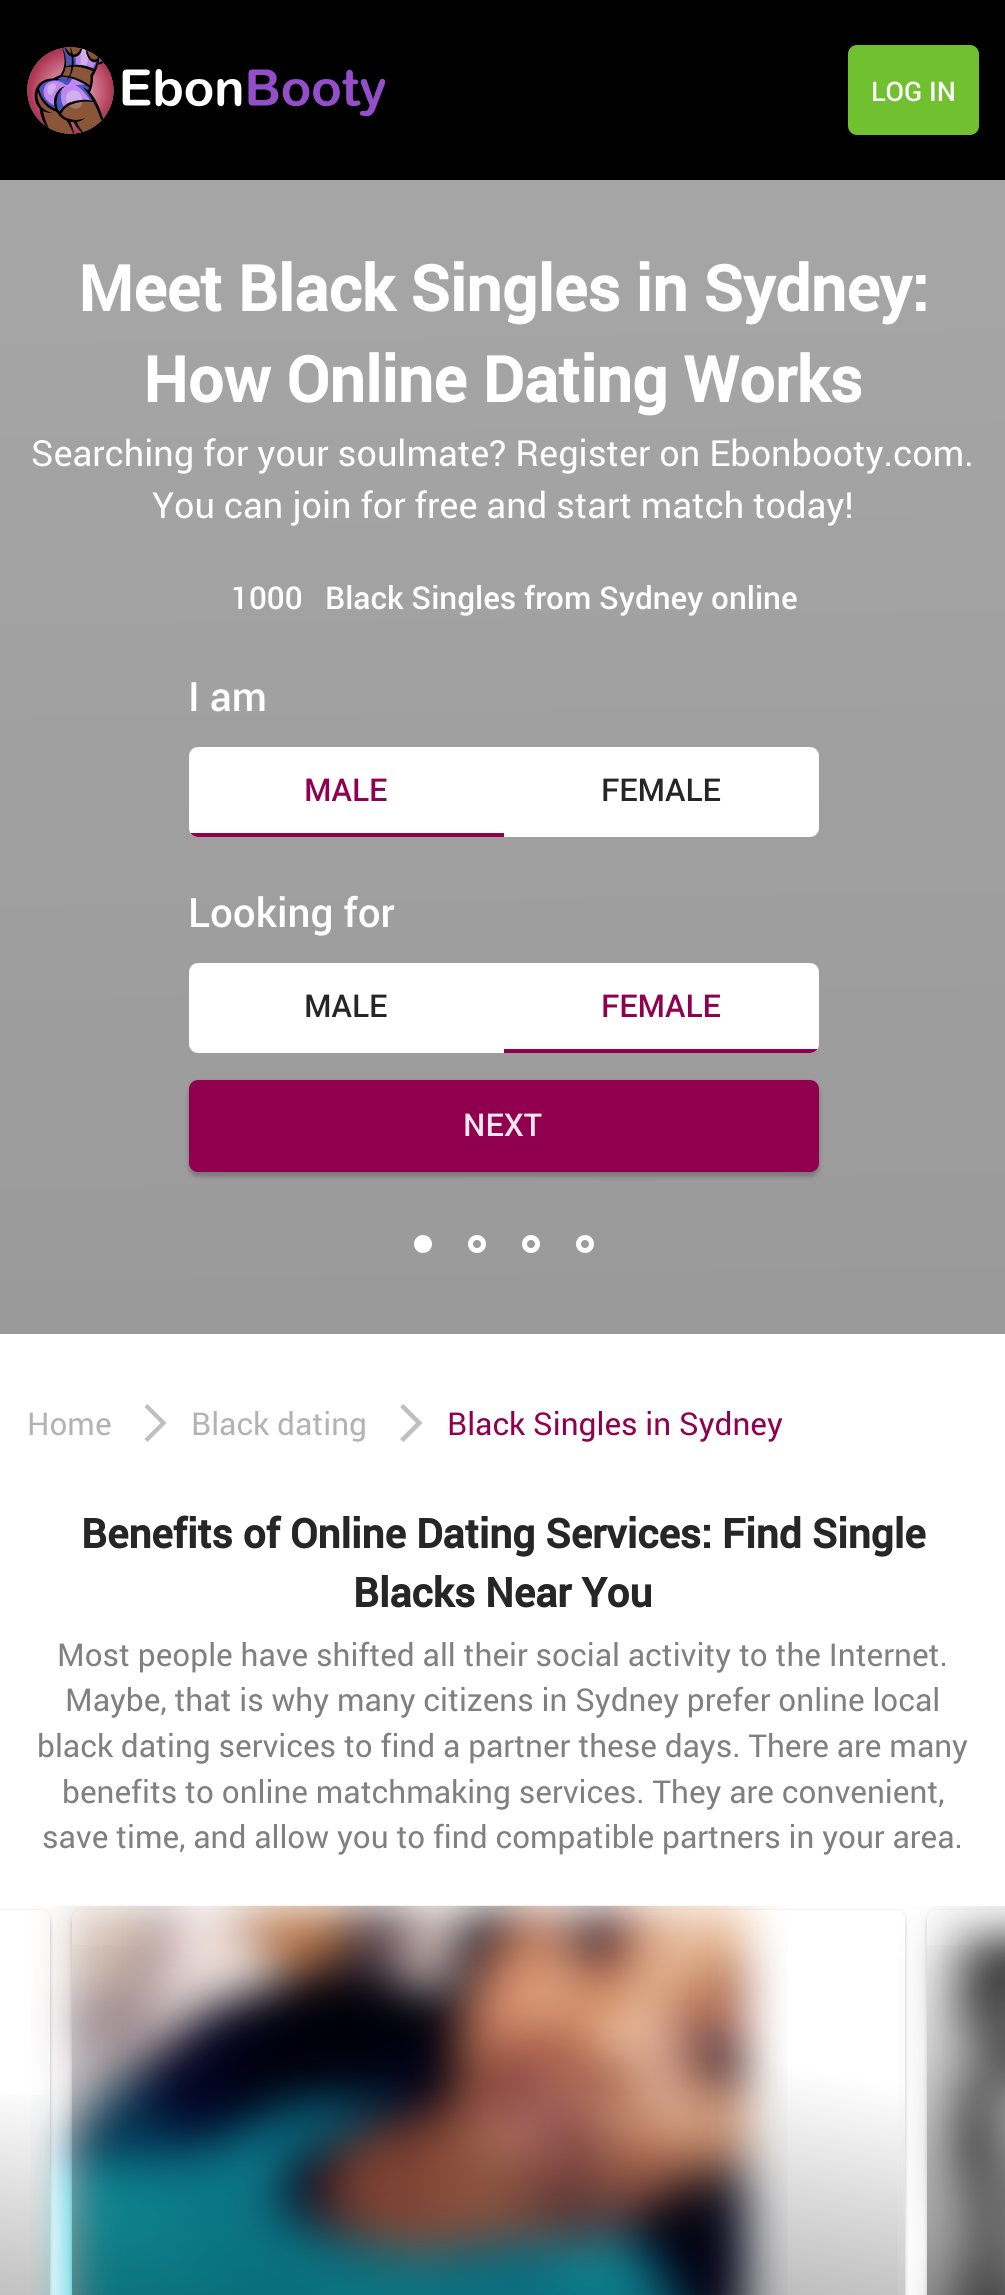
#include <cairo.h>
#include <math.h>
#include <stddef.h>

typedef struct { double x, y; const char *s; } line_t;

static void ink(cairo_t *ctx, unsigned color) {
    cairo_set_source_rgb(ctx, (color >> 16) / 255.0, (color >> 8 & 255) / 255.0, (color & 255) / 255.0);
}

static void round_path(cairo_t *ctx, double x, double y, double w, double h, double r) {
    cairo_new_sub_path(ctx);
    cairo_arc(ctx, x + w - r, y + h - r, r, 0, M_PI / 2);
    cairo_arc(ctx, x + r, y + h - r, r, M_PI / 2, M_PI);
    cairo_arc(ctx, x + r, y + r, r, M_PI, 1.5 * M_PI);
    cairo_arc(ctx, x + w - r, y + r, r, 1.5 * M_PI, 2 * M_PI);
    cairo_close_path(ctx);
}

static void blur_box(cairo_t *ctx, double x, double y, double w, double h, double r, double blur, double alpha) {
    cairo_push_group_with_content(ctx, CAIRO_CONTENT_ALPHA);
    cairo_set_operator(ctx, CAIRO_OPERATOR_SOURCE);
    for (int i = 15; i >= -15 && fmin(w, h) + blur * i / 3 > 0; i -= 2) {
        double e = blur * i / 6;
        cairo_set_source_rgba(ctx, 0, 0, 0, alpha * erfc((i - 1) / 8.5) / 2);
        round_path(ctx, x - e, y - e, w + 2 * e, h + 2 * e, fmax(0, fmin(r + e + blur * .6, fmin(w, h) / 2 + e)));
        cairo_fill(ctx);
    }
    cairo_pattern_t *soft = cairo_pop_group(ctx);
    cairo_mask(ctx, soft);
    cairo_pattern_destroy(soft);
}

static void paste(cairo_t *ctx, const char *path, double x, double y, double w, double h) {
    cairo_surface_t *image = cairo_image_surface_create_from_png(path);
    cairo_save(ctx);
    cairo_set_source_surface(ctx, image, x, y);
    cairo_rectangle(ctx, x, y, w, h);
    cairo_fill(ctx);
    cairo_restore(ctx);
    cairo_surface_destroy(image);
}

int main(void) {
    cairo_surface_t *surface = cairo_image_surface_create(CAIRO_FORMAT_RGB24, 1005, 2295);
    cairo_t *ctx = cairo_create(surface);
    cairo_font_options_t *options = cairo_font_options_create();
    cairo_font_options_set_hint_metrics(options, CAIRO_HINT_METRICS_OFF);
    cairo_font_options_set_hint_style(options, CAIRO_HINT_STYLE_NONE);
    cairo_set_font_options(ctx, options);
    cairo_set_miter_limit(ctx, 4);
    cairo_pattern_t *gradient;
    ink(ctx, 0xFFFFFF);
    cairo_paint(ctx);
    ink(ctx, 0x000000);
    cairo_rectangle(ctx, 0, 0, 1005, 180);
    cairo_fill(ctx);
    paste(ctx, "media/1.png", 27, 47, 359, 87);
    ink(ctx, 0x71C030);
    round_path(ctx, 848, 45, 131, 90, 9);
    cairo_fill(ctx);
    cairo_select_font_face(ctx, "Roboto Medium", CAIRO_FONT_SLANT_NORMAL, CAIRO_FONT_WEIGHT_NORMAL);
    cairo_set_font_size(ctx, 27);
    ink(ctx, 0xFFFFFF);
    cairo_move_to(ctx, 871, 101);
    cairo_show_text(ctx, "LOG IN");
    gradient = cairo_pattern_create_linear(494, 172, 512, 1342);
    cairo_pattern_add_color_stop_rgba(gradient, 0.02, 0.651, 0.651, 0.651, 1);
    cairo_pattern_add_color_stop_rgba(gradient, 0.98, 0.604, 0.604, 0.604, 1);
    cairo_set_source(ctx, gradient);
    cairo_pattern_destroy(gradient);
    cairo_rectangle(ctx, 0, 180, 1005, 1154);
    cairo_fill(ctx);
    cairo_select_font_face(ctx, "Roboto", CAIRO_FONT_SLANT_NORMAL, CAIRO_FONT_WEIGHT_BOLD);
    cairo_set_font_size(ctx, 63);
    ink(ctx, 0xFFFFFF);
    cairo_move_to(ctx, 78, 311);
    cairo_show_text(ctx, "Meet Black Singles in Sydney:");
    cairo_move_to(ctx, 143, 402);
    cairo_show_text(ctx, "How Online Dating Works");
    cairo_select_font_face(ctx, "Roboto", CAIRO_FONT_SLANT_NORMAL, CAIRO_FONT_WEIGHT_NORMAL);
    cairo_set_font_size(ctx, 36);
    cairo_move_to(ctx, 31, 466);
    cairo_show_text(ctx, "Searching for your soulmate? Register on Ebonbooty.com.");
    cairo_move_to(ctx, 152, 518);
    cairo_show_text(ctx, "You can join for free and start match today!");
    cairo_select_font_face(ctx, "Roboto Medium", CAIRO_FONT_SLANT_NORMAL, CAIRO_FONT_WEIGHT_NORMAL);
    cairo_set_font_size(ctx, 31.5);
    cairo_move_to(ctx, 231, 609);
    cairo_show_text(ctx, "1000");
    cairo_move_to(ctx, 325, 609);
    cairo_show_text(ctx, "Black Singles from Sydney online");
    cairo_set_font_size(ctx, 40.5);
    cairo_move_to(ctx, 188, 711);
    cairo_show_text(ctx, "I am");
    round_path(ctx, 189, 747, 630, 90, 9);
    cairo_fill(ctx);
    cairo_save(ctx);
    round_path(ctx, 189, 747, 630, 90, 9);
    cairo_clip(ctx);
    ink(ctx, 0x91004F);
    cairo_rectangle(ctx, 189, 833, 315, 4);
    cairo_fill(ctx);
    cairo_restore(ctx);
    cairo_set_font_size(ctx, 31.5);
    ink(ctx, 0x91004F);
    cairo_move_to(ctx, 304, 801);
    cairo_show_text(ctx, "MALE");
    ink(ctx, 0x262626);
    cairo_move_to(ctx, 601, 801);
    cairo_show_text(ctx, "FEMALE");
    cairo_set_font_size(ctx, 40.5);
    ink(ctx, 0xFFFFFF);
    cairo_move_to(ctx, 188, 927);
    cairo_show_text(ctx, "Looking for");
    round_path(ctx, 189, 963, 630, 90, 9);
    cairo_fill(ctx);
    cairo_set_font_size(ctx, 31.5);
    ink(ctx, 0x262626);
    cairo_move_to(ctx, 304, 1017);
    cairo_show_text(ctx, "MALE");
    cairo_save(ctx);
    round_path(ctx, 189, 963, 630, 90, 9);
    cairo_clip(ctx);
    ink(ctx, 0x91004F);
    cairo_rectangle(ctx, 504, 1049, 315, 4);
    cairo_fill(ctx);
    cairo_restore(ctx);
    ink(ctx, 0x91004F);
    cairo_move_to(ctx, 601, 1017);
    cairo_show_text(ctx, "FEMALE");
    ink(ctx, 0x000000);
    blur_box(ctx, 189, 1080, 630, 92, 9, 2, 0.1);
    blur_box(ctx, 189, 1085, 630, 92, 9, 2, 0.2);
    ink(ctx, 0x91004F);
    round_path(ctx, 189, 1080, 630, 92, 9);
    cairo_fill(ctx);
    ink(ctx, 0xF4E6ED);
    cairo_move_to(ctx, 463, 1136);
    cairo_show_text(ctx, "NEXT");
    ink(ctx, 0xFFFFFF);
    cairo_new_path(ctx);
    cairo_arc(ctx, 423, 1244, 6.5, 0, 2 * M_PI);
    cairo_fill_preserve(ctx);
    cairo_set_line_width(ctx, 5);
    cairo_stroke(ctx);
    cairo_arc(ctx, 477, 1244, 6.5, 0, 2 * M_PI);
    cairo_stroke(ctx);
    cairo_arc(ctx, 531, 1244, 6.5, 0, 2 * M_PI);
    cairo_stroke(ctx);
    cairo_arc(ctx, 585, 1244, 6.5, 0, 2 * M_PI);
    cairo_stroke(ctx);
    cairo_select_font_face(ctx, "Roboto", CAIRO_FONT_SLANT_NORMAL, CAIRO_FONT_WEIGHT_NORMAL);
    ink(ctx, 0xB3B3B3);
    cairo_move_to(ctx, 27, 1435);
    cairo_show_text(ctx, "Home");
    ink(ctx, 0xBFBFBF);
    cairo_new_path(ctx);
    cairo_move_to(ctx, 147.5, 1404);
    cairo_line_to(ctx, 166.5, 1423);
    cairo_line_to(ctx, 160.5, 1423);
    cairo_line_to(ctx, 144.5, 1407);
    cairo_close_path(ctx);
    cairo_move_to(ctx, 166.5, 1423);
    cairo_line_to(ctx, 147.5, 1442);
    cairo_line_to(ctx, 144.5, 1439);
    cairo_line_to(ctx, 160.5, 1423);
    cairo_close_path(ctx);
    cairo_fill(ctx);
    ink(ctx, 0xB3B3B3);
    cairo_move_to(ctx, 191, 1435);
    cairo_show_text(ctx, "Black dating");
    ink(ctx, 0xBFBFBF);
    cairo_new_path(ctx);
    cairo_move_to(ctx, 403.5, 1404);
    cairo_line_to(ctx, 422.5, 1423);
    cairo_line_to(ctx, 416, 1423);
    cairo_line_to(ctx, 400, 1407);
    cairo_close_path(ctx);
    cairo_move_to(ctx, 422.5, 1423);
    cairo_line_to(ctx, 403.5, 1442);
    cairo_line_to(ctx, 400, 1439);
    cairo_line_to(ctx, 416, 1423);
    cairo_close_path(ctx);
    cairo_fill(ctx);
    ink(ctx, 0x91004F);
    cairo_move_to(ctx, 447, 1435);
    cairo_show_text(ctx, "Black Singles in Sydney");
    cairo_select_font_face(ctx, "Roboto", CAIRO_FONT_SLANT_NORMAL, CAIRO_FONT_WEIGHT_BOLD);
    cairo_set_font_size(ctx, 40.5);
    ink(ctx, 0x262626);
    cairo_move_to(ctx, 81, 1548);
    cairo_show_text(ctx, "Benefits of Online Dating Services: Find Single");
    cairo_move_to(ctx, 353, 1607);
    cairo_show_text(ctx, "Blacks Near You");
    cairo_select_font_face(ctx, "Roboto", CAIRO_FONT_SLANT_NORMAL, CAIRO_FONT_WEIGHT_NORMAL);
    cairo_set_font_size(ctx, 31.5);
    ink(ctx, 0x808080);
    {
        static const line_t items[] = {
            {57, 1666, "Most people have shifted all their social activity to the Internet."},
            {65, 1711, "Maybe, that is why many citizens in Sydney prefer online local"},
            {37, 1757, "black dating services to find a partner these days. There are many"},
            {62, 1803, "benefits to online matchmaking services. They are convenient,"},
            {42, 1848, "save time, and allow you to find compatible partners in your area."},
        };
        for (size_t i = 0; i < sizeof items / sizeof *items; i++) {
            cairo_move_to(ctx, items[i].x, items[i].y);
            cairo_show_text(ctx, items[i].s);
        }
    }
    cairo_save(ctx);
    cairo_set_fill_rule(ctx, CAIRO_FILL_RULE_EVEN_ODD);
    cairo_new_path(ctx);
    cairo_move_to(ctx, 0, 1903);
    cairo_line_to(ctx, 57, 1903);
    cairo_line_to(ctx, 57, 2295);
    cairo_line_to(ctx, 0, 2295);
    cairo_close_path(ctx);
    cairo_move_to(ctx, -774, 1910);
    cairo_line_to(ctx, 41, 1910);
    cairo_curve_to(ctx, 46, 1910, 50, 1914, 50, 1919);
    cairo_line_to(ctx, 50, 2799);
    cairo_curve_to(ctx, 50, 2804, 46, 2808, 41, 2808);
    cairo_line_to(ctx, -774, 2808);
    cairo_curve_to(ctx, -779, 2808, -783, 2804, -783, 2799);
    cairo_line_to(ctx, -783, 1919);
    cairo_curve_to(ctx, -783, 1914, -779, 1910, -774, 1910);
    cairo_close_path(ctx);
    cairo_clip(ctx);
    ink(ctx, 0x000000);
    blur_box(ctx, -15, 1910, 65, 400, 9, 2, 0.1);
    cairo_restore(ctx);
    cairo_save(ctx);
    cairo_set_fill_rule(ctx, CAIRO_FILL_RULE_EVEN_ODD);
    cairo_new_path(ctx);
    cairo_move_to(ctx, 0, 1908);
    cairo_line_to(ctx, 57, 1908);
    cairo_line_to(ctx, 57, 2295);
    cairo_line_to(ctx, 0, 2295);
    cairo_close_path(ctx);
    cairo_move_to(ctx, -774, 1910);
    cairo_line_to(ctx, 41, 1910);
    cairo_curve_to(ctx, 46, 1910, 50, 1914, 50, 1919);
    cairo_line_to(ctx, 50, 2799);
    cairo_curve_to(ctx, 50, 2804, 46, 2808, 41, 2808);
    cairo_line_to(ctx, -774, 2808);
    cairo_curve_to(ctx, -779, 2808, -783, 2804, -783, 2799);
    cairo_line_to(ctx, -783, 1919);
    cairo_curve_to(ctx, -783, 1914, -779, 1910, -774, 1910);
    cairo_close_path(ctx);
    cairo_clip(ctx);
    ink(ctx, 0x000000);
    blur_box(ctx, -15, 1915, 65, 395, 9, 2, 0.2);
    cairo_restore(ctx);
    gradient = cairo_pattern_create_linear(-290, 1845, -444, 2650);
    cairo_pattern_add_color_stop_rgba(gradient, 0.21, 0, 0, 0, 0);
    cairo_pattern_add_color_stop_rgba(gradient, 0.89, 0, 0, 0, 0.63);
    cairo_set_source(ctx, gradient);
    cairo_pattern_destroy(gradient);
    cairo_rectangle(ctx, 0, 2095, 50, 200);
    cairo_fill(ctx);
    cairo_save(ctx);
    cairo_set_fill_rule(ctx, CAIRO_FILL_RULE_EVEN_ODD);
    cairo_new_path(ctx);
    cairo_move_to(ctx, 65, 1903);
    cairo_line_to(ctx, 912, 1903);
    cairo_line_to(ctx, 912, 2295);
    cairo_line_to(ctx, 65, 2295);
    cairo_close_path(ctx);
    cairo_move_to(ctx, 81, 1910);
    cairo_line_to(ctx, 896, 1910);
    cairo_curve_to(ctx, 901, 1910, 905, 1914, 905, 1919);
    cairo_line_to(ctx, 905, 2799);
    cairo_curve_to(ctx, 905, 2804, 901, 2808, 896, 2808);
    cairo_line_to(ctx, 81, 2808);
    cairo_curve_to(ctx, 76, 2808, 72, 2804, 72, 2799);
    cairo_line_to(ctx, 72, 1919);
    cairo_curve_to(ctx, 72, 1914, 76, 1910, 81, 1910);
    cairo_close_path(ctx);
    cairo_clip(ctx);
    ink(ctx, 0x000000);
    blur_box(ctx, 72, 1910, 833, 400, 9, 2, 0.1);
    cairo_restore(ctx);
    cairo_save(ctx);
    cairo_set_fill_rule(ctx, CAIRO_FILL_RULE_EVEN_ODD);
    cairo_new_path(ctx);
    cairo_move_to(ctx, 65, 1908);
    cairo_line_to(ctx, 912, 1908);
    cairo_line_to(ctx, 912, 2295);
    cairo_line_to(ctx, 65, 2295);
    cairo_close_path(ctx);
    cairo_move_to(ctx, 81, 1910);
    cairo_line_to(ctx, 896, 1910);
    cairo_curve_to(ctx, 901, 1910, 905, 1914, 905, 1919);
    cairo_line_to(ctx, 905, 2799);
    cairo_curve_to(ctx, 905, 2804, 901, 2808, 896, 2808);
    cairo_line_to(ctx, 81, 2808);
    cairo_curve_to(ctx, 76, 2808, 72, 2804, 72, 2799);
    cairo_line_to(ctx, 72, 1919);
    cairo_curve_to(ctx, 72, 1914, 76, 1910, 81, 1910);
    cairo_close_path(ctx);
    cairo_clip(ctx);
    ink(ctx, 0x000000);
    blur_box(ctx, 72, 1915, 833, 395, 9, 2, 0.2);
    cairo_restore(ctx);
    paste(ctx, "media/2.png", 30, 1905, 758, 390);
    gradient = cairo_pattern_create_linear(565, 1845, 411, 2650);
    cairo_pattern_add_color_stop_rgba(gradient, 0.21, 0, 0, 0, 0);
    cairo_pattern_add_color_stop_rgba(gradient, 0.89, 0, 0, 0, 0.63);
    cairo_set_source(ctx, gradient);
    cairo_pattern_destroy(gradient);
    cairo_rectangle(ctx, 72, 1945, 833, 350);
    cairo_fill(ctx);
    cairo_save(ctx);
    cairo_set_fill_rule(ctx, CAIRO_FILL_RULE_EVEN_ODD);
    cairo_new_path(ctx);
    cairo_move_to(ctx, 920, 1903);
    cairo_line_to(ctx, 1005, 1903);
    cairo_line_to(ctx, 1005, 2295);
    cairo_line_to(ctx, 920, 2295);
    cairo_close_path(ctx);
    cairo_move_to(ctx, 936, 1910);
    cairo_line_to(ctx, 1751, 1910);
    cairo_curve_to(ctx, 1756, 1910, 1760, 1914, 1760, 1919);
    cairo_line_to(ctx, 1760, 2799);
    cairo_curve_to(ctx, 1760, 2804, 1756, 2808, 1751, 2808);
    cairo_line_to(ctx, 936, 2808);
    cairo_curve_to(ctx, 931, 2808, 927, 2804, 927, 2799);
    cairo_line_to(ctx, 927, 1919);
    cairo_curve_to(ctx, 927, 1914, 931, 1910, 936, 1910);
    cairo_close_path(ctx);
    cairo_clip(ctx);
    ink(ctx, 0x000000);
    blur_box(ctx, 927, 1910, 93, 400, 9, 2, 0.1);
    cairo_restore(ctx);
    cairo_save(ctx);
    cairo_rectangle(ctx, 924, 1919, 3, 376);
    cairo_clip(ctx);
    ink(ctx, 0x000000);
    blur_box(ctx, 927, 1915, 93, 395, 9, 2, 0.2);
    cairo_restore(ctx);
    paste(ctx, "media/3.png", 897, 1906, 108, 389);
    gradient = cairo_pattern_create_linear(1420, 1845, 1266, 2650);
    cairo_pattern_add_color_stop_rgba(gradient, 0.21, 0, 0, 0, 0);
    cairo_pattern_add_color_stop_rgba(gradient, 0.89, 0, 0, 0, 0.63);
    cairo_set_source(ctx, gradient);
    cairo_pattern_destroy(gradient);
    cairo_rectangle(ctx, 927, 1945, 78, 350);
    cairo_fill(ctx);
    cairo_surface_write_to_png(surface, "image.png");
    cairo_font_options_destroy(options);
    cairo_destroy(ctx);
    cairo_surface_destroy(surface);
    return 0;
}
